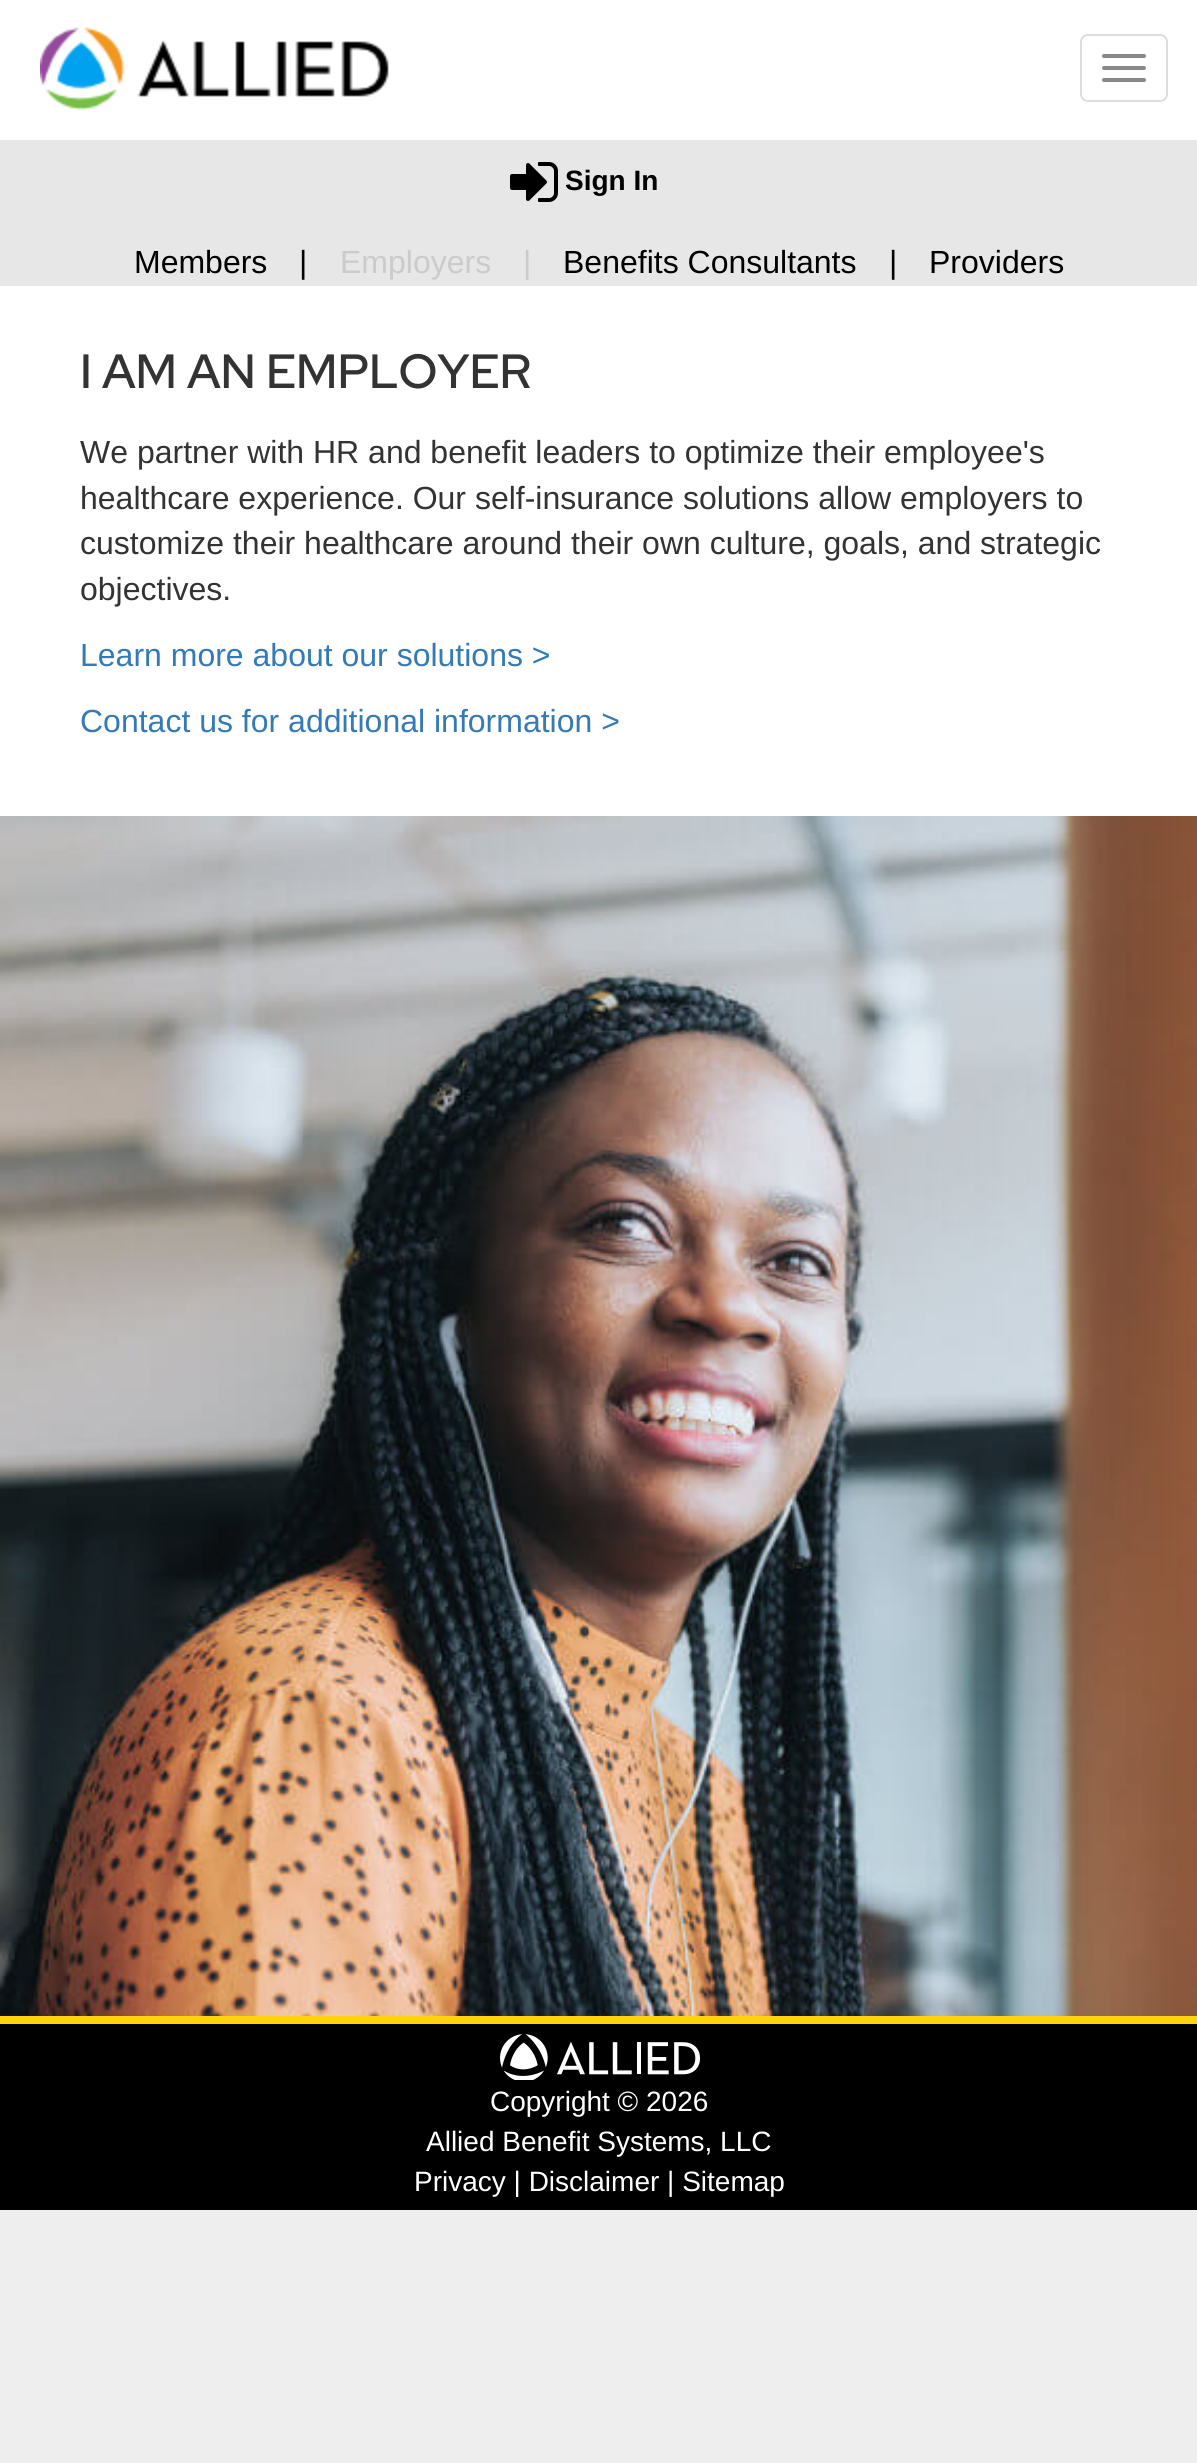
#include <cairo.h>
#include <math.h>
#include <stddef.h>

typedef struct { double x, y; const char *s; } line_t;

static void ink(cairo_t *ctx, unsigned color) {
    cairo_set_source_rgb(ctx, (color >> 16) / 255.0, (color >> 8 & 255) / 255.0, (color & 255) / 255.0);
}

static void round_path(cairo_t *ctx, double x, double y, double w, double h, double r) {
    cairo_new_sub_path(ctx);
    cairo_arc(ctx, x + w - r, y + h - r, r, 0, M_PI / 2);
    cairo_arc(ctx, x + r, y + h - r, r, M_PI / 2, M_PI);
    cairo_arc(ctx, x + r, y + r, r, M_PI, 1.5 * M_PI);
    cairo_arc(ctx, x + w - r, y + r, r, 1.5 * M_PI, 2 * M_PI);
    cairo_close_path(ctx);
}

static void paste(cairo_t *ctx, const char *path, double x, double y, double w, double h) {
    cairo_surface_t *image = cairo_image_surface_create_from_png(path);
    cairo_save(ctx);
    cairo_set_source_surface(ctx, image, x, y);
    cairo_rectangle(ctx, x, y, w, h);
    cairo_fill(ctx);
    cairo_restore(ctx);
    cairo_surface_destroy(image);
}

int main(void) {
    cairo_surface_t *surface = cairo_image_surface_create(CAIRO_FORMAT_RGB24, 1197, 2463);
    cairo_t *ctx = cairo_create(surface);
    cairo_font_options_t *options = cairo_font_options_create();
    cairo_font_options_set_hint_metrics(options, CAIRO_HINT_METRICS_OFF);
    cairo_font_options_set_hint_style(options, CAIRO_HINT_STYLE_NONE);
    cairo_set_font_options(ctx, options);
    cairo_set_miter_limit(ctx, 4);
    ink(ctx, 0xEEEEEE);
    cairo_paint(ctx);
    ink(ctx, 0xFFFFFF);
    cairo_rectangle(ctx, 0, 0, 1197, 816);
    cairo_fill(ctx);
    paste(ctx, "media/1.png", 40, 27, 349, 84);
    round_path(ctx, 1081, 35, 86, 66, 7);
    ink(ctx, 0xDDDDDD);
    cairo_stroke(ctx);
    ink(ctx, 0x888888);
    round_path(ctx, 1102, 54, 44, 4, 2);
    cairo_fill(ctx);
    round_path(ctx, 1102, 66, 44, 4, 2);
    cairo_fill(ctx);
    round_path(ctx, 1102, 78, 44, 4, 2);
    cairo_fill(ctx);
    ink(ctx, 0xE7E7E7);
    cairo_rectangle(ctx, 0, 140, 1197, 146);
    cairo_fill(ctx);
    paste(ctx, "media/2.png", 510, 162, 48, 40);
    cairo_select_font_face(ctx, "Liberation Sans", CAIRO_FONT_SLANT_NORMAL, CAIRO_FONT_WEIGHT_BOLD);
    cairo_set_font_size(ctx, 28);
    ink(ctx, 0x000000);
    cairo_move_to(ctx, 565, 190);
    cairo_show_text(ctx, "Sign In");
    cairo_select_font_face(ctx, "Liberation Sans", CAIRO_FONT_SLANT_NORMAL, CAIRO_FONT_WEIGHT_NORMAL);
    cairo_set_font_size(ctx, 32);
    cairo_move_to(ctx, 134, 273);
    cairo_show_text(ctx, "Members");
    cairo_move_to(ctx, 299, 273);
    cairo_show_text(ctx, "|");
    ink(ctx, 0xCBCBCB);
    cairo_move_to(ctx, 340, 273);
    cairo_show_text(ctx, "Employers");
    cairo_move_to(ctx, 523, 273);
    cairo_show_text(ctx, "|");
    ink(ctx, 0x000000);
    {
        static const line_t items[] = {
            {563, 273, "Benefits Consultants"},
            {889, 273, "|"},
            {929, 273, "Providers"},
        };
        for (size_t i = 0; i < sizeof items / sizeof *items; i++) {
            cairo_move_to(ctx, items[i].x, items[i].y);
            cairo_show_text(ctx, items[i].s);
        }
    }
    cairo_select_font_face(ctx, "Red Hat Display SemiBold", CAIRO_FONT_SLANT_NORMAL, CAIRO_FONT_WEIGHT_NORMAL);
    cairo_set_font_size(ctx, 48);
    ink(ctx, 0x333333);
    cairo_move_to(ctx, 80, 388);
    cairo_show_text(ctx, "I AM AN EMPLOYER");
    cairo_select_font_face(ctx, "Liberation Sans", CAIRO_FONT_SLANT_NORMAL, CAIRO_FONT_WEIGHT_NORMAL);
    cairo_set_font_size(ctx, 32);
    {
        static const line_t items[] = {
            {80, 463, "We partner with HR and benefit leaders to optimize their employee's"},
            {80, 509, "healthcare experience. Our self-insurance solutions allow employers to"},
            {80, 554, "customize their healthcare around their own culture, goals, and strategic"},
            {80, 600, "objectives."},
        };
        for (size_t i = 0; i < sizeof items / sizeof *items; i++) {
            cairo_move_to(ctx, items[i].x, items[i].y);
            cairo_show_text(ctx, items[i].s);
        }
    }
    ink(ctx, 0x337AB7);
    cairo_move_to(ctx, 80, 666);
    cairo_show_text(ctx, "Learn more about our solutions >");
    cairo_move_to(ctx, 80, 732);
    cairo_show_text(ctx, "Contact us for additional information >");
    paste(ctx, "media/3.png", 0, 816, 1197, 1200);
    ink(ctx, 0x000000);
    cairo_rectangle(ctx, 0, 2024, 1197, 186);
    cairo_fill(ctx);
    ink(ctx, 0xFED30E);
    cairo_rectangle(ctx, 0, 2016, 1197, 8);
    cairo_fill(ctx);
    paste(ctx, "media/4.png", 500, 2034, 200, 46);
    cairo_set_font_size(ctx, 28);
    ink(ctx, 0xFFFFFF);
    {
        static const line_t items[] = {
            {490, 2111, "Copyright © 2026"},
            {426, 2151, "Allied Benefit Systems, LLC"},
            {414, 2191, "Privacy | Disclaimer | Sitemap"},
        };
        for (size_t i = 0; i < sizeof items / sizeof *items; i++) {
            cairo_move_to(ctx, items[i].x, items[i].y);
            cairo_show_text(ctx, items[i].s);
        }
    }
    cairo_surface_write_to_png(surface, "image.png");
    cairo_font_options_destroy(options);
    cairo_destroy(ctx);
    cairo_surface_destroy(surface);
    return 0;
}
